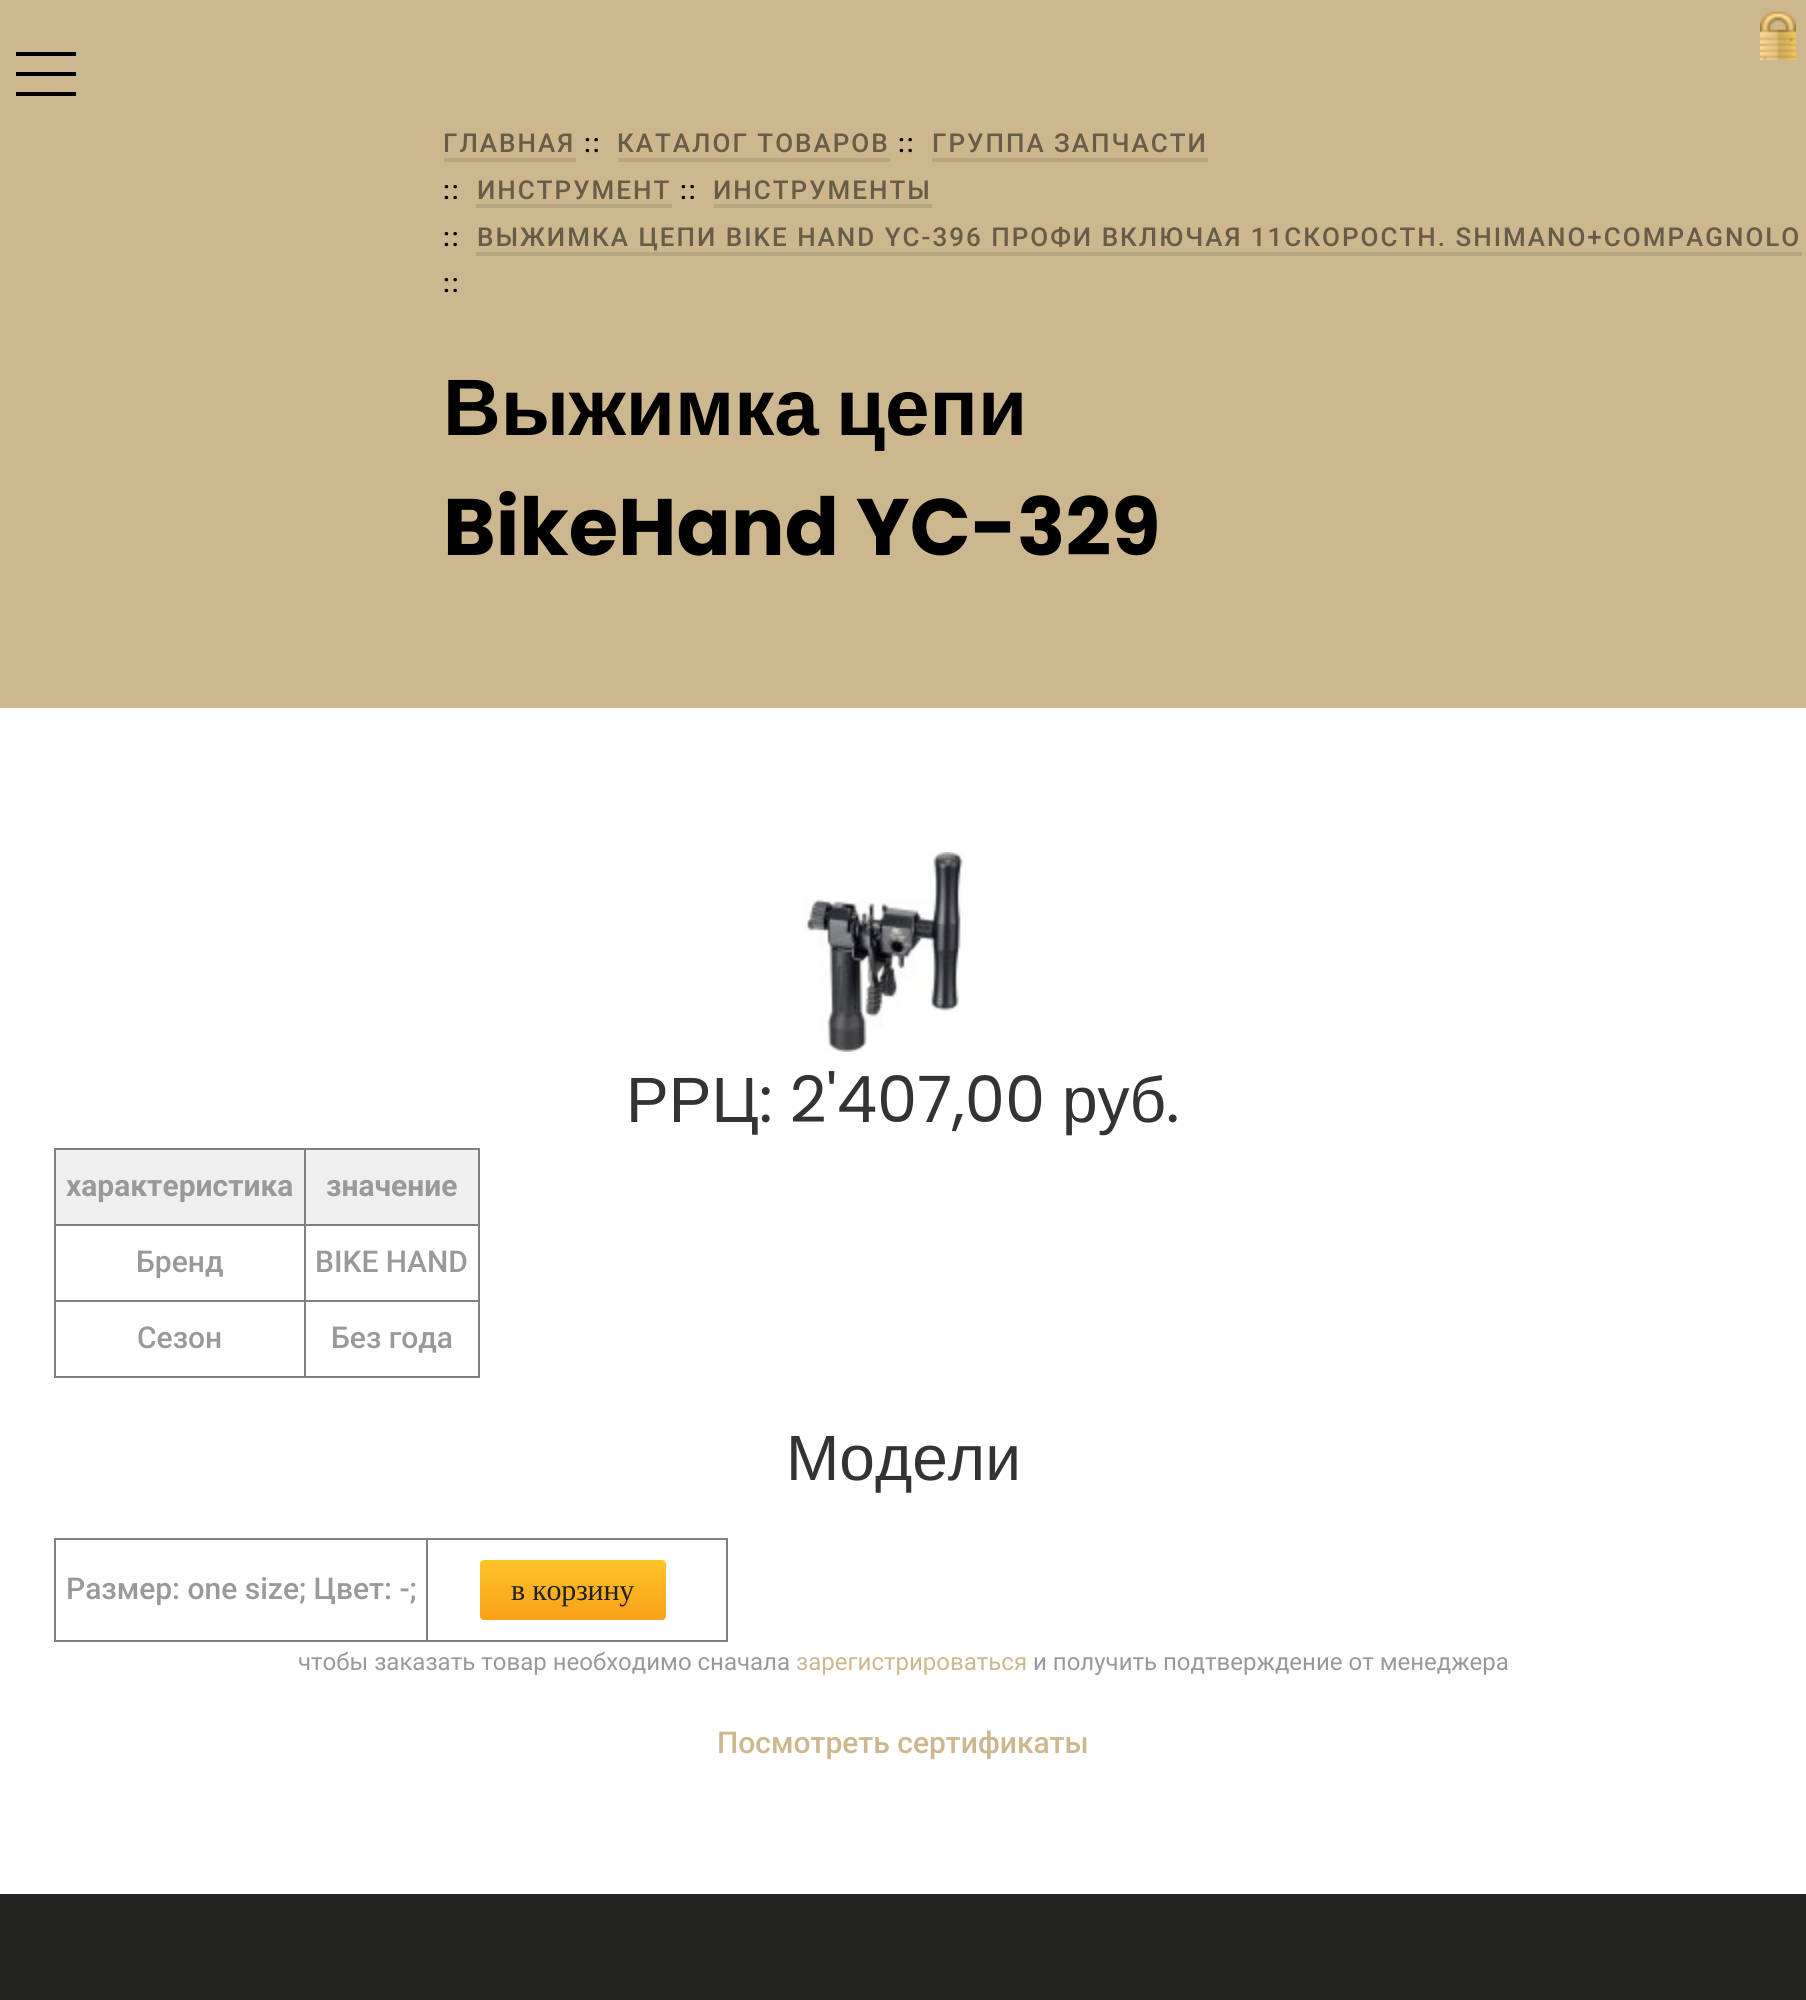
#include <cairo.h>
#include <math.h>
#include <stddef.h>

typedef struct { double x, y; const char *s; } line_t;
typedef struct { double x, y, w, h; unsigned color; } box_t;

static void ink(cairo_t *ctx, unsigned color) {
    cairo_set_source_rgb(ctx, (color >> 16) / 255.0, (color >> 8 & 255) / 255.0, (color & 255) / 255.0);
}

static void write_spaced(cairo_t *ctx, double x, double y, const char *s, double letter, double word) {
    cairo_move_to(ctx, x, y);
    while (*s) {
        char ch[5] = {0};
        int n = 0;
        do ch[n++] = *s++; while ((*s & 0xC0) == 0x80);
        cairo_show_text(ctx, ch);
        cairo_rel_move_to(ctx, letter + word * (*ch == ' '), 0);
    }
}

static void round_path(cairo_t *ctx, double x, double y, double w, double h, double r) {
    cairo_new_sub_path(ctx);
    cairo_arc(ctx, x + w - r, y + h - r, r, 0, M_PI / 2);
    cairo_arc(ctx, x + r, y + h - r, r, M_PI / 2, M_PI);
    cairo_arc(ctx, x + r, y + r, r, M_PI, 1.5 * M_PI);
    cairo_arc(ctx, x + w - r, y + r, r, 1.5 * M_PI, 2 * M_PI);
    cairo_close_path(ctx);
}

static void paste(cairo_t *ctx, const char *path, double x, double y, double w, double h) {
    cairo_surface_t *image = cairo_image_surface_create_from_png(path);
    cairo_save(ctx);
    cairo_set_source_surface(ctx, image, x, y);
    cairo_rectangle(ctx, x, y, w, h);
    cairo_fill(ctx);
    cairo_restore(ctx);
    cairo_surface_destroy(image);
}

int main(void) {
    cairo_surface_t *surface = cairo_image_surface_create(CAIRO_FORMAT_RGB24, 1806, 2000);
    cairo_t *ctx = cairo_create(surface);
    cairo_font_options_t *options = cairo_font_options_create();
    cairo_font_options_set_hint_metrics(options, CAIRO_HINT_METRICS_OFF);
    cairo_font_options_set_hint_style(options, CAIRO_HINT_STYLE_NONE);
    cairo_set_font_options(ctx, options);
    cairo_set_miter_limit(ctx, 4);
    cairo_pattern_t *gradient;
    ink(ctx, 0xFFFFFF);
    cairo_paint(ctx);
    ink(ctx, 0xCCB78F);
    cairo_rectangle(ctx, 0, 0, 1806, 708);
    cairo_fill(ctx);
    paste(ctx, "media/1.png", 1760, 11, 36, 49);
    {
        static const box_t items[] = {
            {16, 72, 60, 4, 0x000000},
            {16, 52, 60, 4, 0x000000},
            {16, 92, 60, 4, 0x000000},
        };
        for (size_t i = 0; i < sizeof items / sizeof *items; i++) {
            ink(ctx, items[i].color);
            cairo_rectangle(ctx, items[i].x, items[i].y, items[i].w, items[i].h);
            cairo_fill(ctx);
        }
    }
    cairo_select_font_face(ctx, "Roboto Medium", CAIRO_FONT_SLANT_NORMAL, CAIRO_FONT_WEIGHT_NORMAL);
    cairo_set_font_size(ctx, 26);
    ink(ctx, 0x665C48);
    write_spaced(ctx, 443, 152, "ГЛАВНАЯ", 2, 0);
    ink(ctx, 0xB8A581);
    cairo_rectangle(ctx, 444, 158, 132, 4);
    cairo_fill(ctx);
    ink(ctx, 0x000000);
    write_spaced(ctx, 584, 152, "::", 2, 0);
    ink(ctx, 0x665C48);
    write_spaced(ctx, 617, 152, "КАТАЛОГ ТОВАРОВ", 2, 0);
    ink(ctx, 0xB8A581);
    cairo_rectangle(ctx, 618, 158, 272, 4);
    cairo_fill(ctx);
    ink(ctx, 0x000000);
    write_spaced(ctx, 898, 152, "::", 2, 0);
    ink(ctx, 0x665C48);
    write_spaced(ctx, 932, 152, "ГРУППА ЗАПЧАСТИ", 2, 0);
    ink(ctx, 0xB8A581);
    cairo_rectangle(ctx, 932, 158, 276, 4);
    cairo_fill(ctx);
    ink(ctx, 0x000000);
    write_spaced(ctx, 443, 199, "::", 2, 0);
    ink(ctx, 0x665C48);
    write_spaced(ctx, 477, 199, "ИНСТРУМЕНТ", 2, 0);
    ink(ctx, 0xB8A581);
    cairo_rectangle(ctx, 476, 204, 196, 4);
    cairo_fill(ctx);
    ink(ctx, 0x000000);
    write_spaced(ctx, 680, 199, "::", 2, 0);
    ink(ctx, 0x665C48);
    write_spaced(ctx, 713, 199, "ИНСТРУМЕНТЫ", 2, 0);
    ink(ctx, 0xB8A581);
    cairo_rectangle(ctx, 714, 204, 218, 4);
    cairo_fill(ctx);
    ink(ctx, 0x000000);
    write_spaced(ctx, 443, 246, "::", 2, 0);
    ink(ctx, 0x665C48);
    write_spaced(ctx, 477, 246, "ВЫЖИМКА ЦЕПИ BIKE HAND YC-396 ПРОФИ ВКЛЮЧАЯ 11СКОРОСТН. SHIMANO+COMPAGNOLO", 2, 0);
    ink(ctx, 0xB8A581);
    cairo_rectangle(ctx, 476, 252, 1326, 4);
    cairo_fill(ctx);
    ink(ctx, 0x000000);
    write_spaced(ctx, 443, 292, "::", 2, 0);
    cairo_select_font_face(ctx, "Liberation Sans", CAIRO_FONT_SLANT_NORMAL, CAIRO_FONT_WEIGHT_BOLD);
    cairo_set_font_size(ctx, 80);
    write_spaced(ctx, 443, 435, "Выжимка цепи", 0, -5);
    cairo_select_font_face(ctx, "Poppins", CAIRO_FONT_SLANT_NORMAL, CAIRO_FONT_WEIGHT_BOLD);
    cairo_move_to(ctx, 443, 555);
    cairo_show_text(ctx, "BikeHand YC-329");
    paste(ctx, "media/2.png", 804, 852, 159, 200);
    cairo_select_font_face(ctx, "Liberation Sans", CAIRO_FONT_SLANT_NORMAL, CAIRO_FONT_WEIGHT_NORMAL);
    cairo_set_font_size(ctx, 64);
    ink(ctx, 0x333333);
    cairo_move_to(ctx, 626, 1122);
    cairo_show_text(ctx, "РРЦ");
    cairo_select_font_face(ctx, "Poppins", CAIRO_FONT_SLANT_NORMAL, CAIRO_FONT_WEIGHT_NORMAL);
    cairo_move_to(ctx, 759, 1122);
    cairo_show_text(ctx, ": 2'407,00");
    cairo_select_font_face(ctx, "Liberation Sans", CAIRO_FONT_SLANT_NORMAL, CAIRO_FONT_WEIGHT_NORMAL);
    cairo_move_to(ctx, 1062, 1122);
    cairo_show_text(ctx, "руб");
    cairo_select_font_face(ctx, "Poppins", CAIRO_FONT_SLANT_NORMAL, CAIRO_FONT_WEIGHT_NORMAL);
    cairo_move_to(ctx, 1166, 1122);
    cairo_show_text(ctx, ".");
    {
        static const box_t items[] = {
            {56, 1150, 248, 74, 0xEFEFEF},
            {304, 1148, 176, 2, 0x808080},
            {304, 1224, 176, 2, 0x808080},
            {304, 1300, 176, 2, 0x808080},
            {478, 1300, 2, 78, 0x808080},
            {304, 1376, 176, 2, 0x808080},
            {304, 1300, 2, 78, 0x808080},
            {54, 1300, 252, 2, 0x808080},
            {304, 1224, 2, 78, 0x808080},
            {54, 1224, 252, 2, 0x808080},
            {304, 1148, 2, 78, 0x808080},
            {54, 1148, 252, 2, 0x808080},
            {54, 1376, 252, 2, 0x808080},
            {54, 1300, 2, 78, 0x808080},
            {54, 1224, 2, 78, 0x808080},
            {54, 1148, 2, 78, 0x808080},
        };
        for (size_t i = 0; i < sizeof items / sizeof *items; i++) {
            ink(ctx, items[i].color);
            cairo_rectangle(ctx, items[i].x, items[i].y, items[i].w, items[i].h);
            cairo_fill(ctx);
        }
    }
    cairo_select_font_face(ctx, "Roboto", CAIRO_FONT_SLANT_NORMAL, CAIRO_FONT_WEIGHT_BOLD);
    cairo_set_font_size(ctx, 30);
    ink(ctx, 0x999999);
    cairo_move_to(ctx, 66, 1196);
    cairo_show_text(ctx, "характеристика");
    {
        static const box_t items[] = {
            {306, 1150, 172, 74, 0xEFEFEF},
            {478, 1224, 2, 78, 0x808080},
            {478, 1148, 2, 78, 0x808080},
        };
        for (size_t i = 0; i < sizeof items / sizeof *items; i++) {
            ink(ctx, items[i].color);
            cairo_rectangle(ctx, items[i].x, items[i].y, items[i].w, items[i].h);
            cairo_fill(ctx);
        }
    }
    ink(ctx, 0x999999);
    cairo_move_to(ctx, 326, 1196);
    cairo_show_text(ctx, "значение");
    cairo_select_font_face(ctx, "Roboto Medium", CAIRO_FONT_SLANT_NORMAL, CAIRO_FONT_WEIGHT_NORMAL);
    {
        static const line_t items[] = {
            {136, 1272, "Бренд"},
            {315, 1272, "BIKE HAND"},
            {137, 1348, "Сезон"},
            {331, 1348, "Без года"},
        };
        for (size_t i = 0; i < sizeof items / sizeof *items; i++) {
            cairo_move_to(ctx, items[i].x, items[i].y);
            cairo_show_text(ctx, items[i].s);
        }
    }
    cairo_select_font_face(ctx, "Liberation Sans", CAIRO_FONT_SLANT_NORMAL, CAIRO_FONT_WEIGHT_NORMAL);
    cairo_set_font_size(ctx, 64);
    ink(ctx, 0x333333);
    cairo_move_to(ctx, 786, 1480);
    cairo_show_text(ctx, "Модели");
    {
        static const box_t items[] = {
            {426, 1538, 302, 2, 0x808080},
            {726, 1538, 2, 104, 0x808080},
            {426, 1640, 302, 2, 0x808080},
            {426, 1538, 2, 104, 0x808080},
            {54, 1538, 374, 2, 0x808080},
            {54, 1640, 374, 2, 0x808080},
            {54, 1538, 2, 104, 0x808080},
        };
        for (size_t i = 0; i < sizeof items / sizeof *items; i++) {
            ink(ctx, items[i].color);
            cairo_rectangle(ctx, items[i].x, items[i].y, items[i].w, items[i].h);
            cairo_fill(ctx);
        }
    }
    cairo_select_font_face(ctx, "Roboto Medium", CAIRO_FONT_SLANT_NORMAL, CAIRO_FONT_WEIGHT_NORMAL);
    cairo_set_font_size(ctx, 30);
    ink(ctx, 0x999999);
    cairo_move_to(ctx, 66, 1599);
    cairo_show_text(ctx, "Размер: one size; Цвет: -;");
    gradient = cairo_pattern_create_linear(573, 1560, 573, 1620);
    cairo_pattern_add_color_stop_rgba(gradient, 0, 0.988, 0.769, 0.153, 1);
    cairo_pattern_add_color_stop_rgba(gradient, 1, 0.98, 0.631, 0.098, 1);
    cairo_set_source(ctx, gradient);
    cairo_pattern_destroy(gradient);
    round_path(ctx, 480, 1560, 186, 60, 4);
    cairo_fill(ctx);
    cairo_select_font_face(ctx, "Liberation Serif", CAIRO_FONT_SLANT_NORMAL, CAIRO_FONT_WEIGHT_NORMAL);
    ink(ctx, 0x202020);
    write_spaced(ctx, 511, 1600, "в корзину", -0.25, 0);
    cairo_select_font_face(ctx, "Roboto", CAIRO_FONT_SLANT_NORMAL, CAIRO_FONT_WEIGHT_NORMAL);
    cairo_set_font_size(ctx, 24);
    ink(ctx, 0x999999);
    cairo_move_to(ctx, 298, 1670);
    cairo_show_text(ctx, "чтобы заказать товар необходимо сначала");
    ink(ctx, 0xCCB78F);
    cairo_move_to(ctx, 796, 1670);
    cairo_show_text(ctx, "зарегистрироваться");
    ink(ctx, 0x999999);
    cairo_move_to(ctx, 1033, 1670);
    cairo_show_text(ctx, "и получить подтверждение от менеджера");
    cairo_select_font_face(ctx, "Roboto Medium", CAIRO_FONT_SLANT_NORMAL, CAIRO_FONT_WEIGHT_NORMAL);
    cairo_set_font_size(ctx, 30);
    ink(ctx, 0xCCB78F);
    cairo_move_to(ctx, 717, 1753);
    cairo_show_text(ctx, "Посмотреть сертификаты");
    ink(ctx, 0x242423);
    cairo_rectangle(ctx, 0, 1894, 1806, 106);
    cairo_fill(ctx);
    cairo_surface_write_to_png(surface, "image.png");
    cairo_font_options_destroy(options);
    cairo_destroy(ctx);
    cairo_surface_destroy(surface);
    return 0;
}
